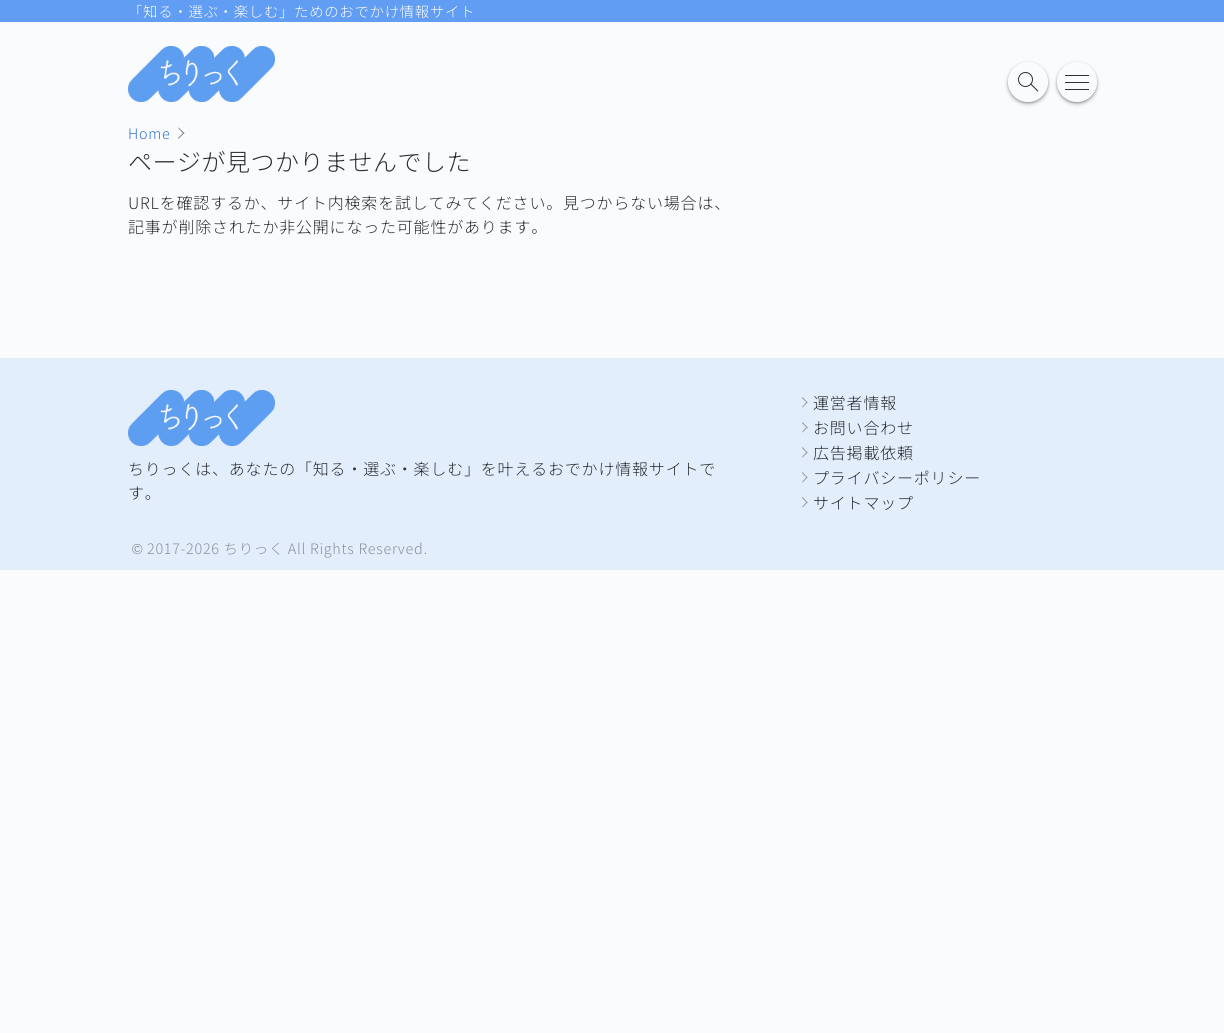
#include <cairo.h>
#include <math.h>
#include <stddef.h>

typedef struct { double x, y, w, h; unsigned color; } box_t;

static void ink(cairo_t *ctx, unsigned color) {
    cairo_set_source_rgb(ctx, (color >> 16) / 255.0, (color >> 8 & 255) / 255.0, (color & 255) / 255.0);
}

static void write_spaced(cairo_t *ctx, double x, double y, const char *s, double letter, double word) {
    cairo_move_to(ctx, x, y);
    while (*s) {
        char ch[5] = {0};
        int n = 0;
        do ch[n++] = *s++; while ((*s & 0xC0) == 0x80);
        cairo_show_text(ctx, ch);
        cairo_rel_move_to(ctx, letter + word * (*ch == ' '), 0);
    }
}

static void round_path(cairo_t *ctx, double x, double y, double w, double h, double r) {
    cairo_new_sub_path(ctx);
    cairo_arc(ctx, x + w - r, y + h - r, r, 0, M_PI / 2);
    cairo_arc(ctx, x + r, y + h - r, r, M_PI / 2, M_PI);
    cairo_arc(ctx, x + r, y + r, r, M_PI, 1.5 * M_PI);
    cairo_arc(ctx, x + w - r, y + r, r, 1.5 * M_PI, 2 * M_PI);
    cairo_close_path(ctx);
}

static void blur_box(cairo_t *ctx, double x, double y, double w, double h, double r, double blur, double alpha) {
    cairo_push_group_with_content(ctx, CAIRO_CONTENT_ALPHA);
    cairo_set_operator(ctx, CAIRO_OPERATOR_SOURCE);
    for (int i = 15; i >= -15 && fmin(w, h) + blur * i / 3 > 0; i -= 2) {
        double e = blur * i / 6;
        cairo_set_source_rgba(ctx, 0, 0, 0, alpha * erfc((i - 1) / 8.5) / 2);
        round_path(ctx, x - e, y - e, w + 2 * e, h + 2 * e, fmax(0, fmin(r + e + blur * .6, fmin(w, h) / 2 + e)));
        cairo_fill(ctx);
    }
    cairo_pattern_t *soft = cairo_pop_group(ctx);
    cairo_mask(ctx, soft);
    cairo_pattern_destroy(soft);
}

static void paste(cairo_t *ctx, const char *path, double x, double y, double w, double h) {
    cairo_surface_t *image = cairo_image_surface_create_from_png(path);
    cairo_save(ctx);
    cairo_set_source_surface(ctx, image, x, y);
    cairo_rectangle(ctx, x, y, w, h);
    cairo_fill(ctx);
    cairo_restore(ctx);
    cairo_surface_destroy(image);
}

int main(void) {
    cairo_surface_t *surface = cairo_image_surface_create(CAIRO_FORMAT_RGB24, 1224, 1033);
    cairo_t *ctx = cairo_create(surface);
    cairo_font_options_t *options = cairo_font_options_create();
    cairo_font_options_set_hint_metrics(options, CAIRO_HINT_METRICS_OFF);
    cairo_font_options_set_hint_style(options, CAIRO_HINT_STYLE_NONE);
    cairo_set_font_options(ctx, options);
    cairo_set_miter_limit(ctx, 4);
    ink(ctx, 0xFAFBFC);
    cairo_paint(ctx);
    ink(ctx, 0x619DF2);
    cairo_rectangle(ctx, 0, 0, 1224, 22);
    cairo_fill(ctx);
    cairo_select_font_face(ctx, "Noto Sans JP Light", CAIRO_FONT_SLANT_NORMAL, CAIRO_FONT_WEIGHT_NORMAL);
    cairo_set_font_size(ctx, 14.4);
    ink(ctx, 0xFAFBFC);
    write_spaced(ctx, 128, 17, "「知る・選ぶ・楽しむ」ためのおでかけ情報サイト", 0.7, 0);
    paste(ctx, "media/1.png", 128, 46, 147, 56);
    cairo_save(ctx);
    cairo_set_fill_rule(ctx, CAIRO_FILL_RULE_EVEN_ODD);
    cairo_new_path(ctx);
    cairo_move_to(ctx, 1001, 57);
    cairo_line_to(ctx, 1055, 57);
    cairo_line_to(ctx, 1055, 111);
    cairo_line_to(ctx, 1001, 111);
    cairo_close_path(ctx);
    cairo_move_to(ctx, 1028, 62);
    cairo_curve_to(ctx, 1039, 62, 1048, 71, 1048, 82);
    cairo_curve_to(ctx, 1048, 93, 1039, 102, 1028, 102);
    cairo_curve_to(ctx, 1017, 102, 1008, 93, 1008, 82);
    cairo_curve_to(ctx, 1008, 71, 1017, 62, 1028, 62);
    cairo_close_path(ctx);
    cairo_clip(ctx);
    ink(ctx, 0x2E3033);
    blur_box(ctx, 1008, 64, 40, 40, 20, 2, 0.3);
    cairo_restore(ctx);
    cairo_save(ctx);
    cairo_set_fill_rule(ctx, CAIRO_FILL_RULE_EVEN_ODD);
    cairo_new_path(ctx);
    cairo_move_to(ctx, 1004, 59);
    cairo_line_to(ctx, 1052, 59);
    cairo_line_to(ctx, 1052, 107);
    cairo_line_to(ctx, 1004, 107);
    cairo_close_path(ctx);
    cairo_move_to(ctx, 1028, 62);
    cairo_curve_to(ctx, 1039, 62, 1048, 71, 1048, 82);
    cairo_curve_to(ctx, 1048, 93, 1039, 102, 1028, 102);
    cairo_curve_to(ctx, 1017, 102, 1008, 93, 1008, 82);
    cairo_curve_to(ctx, 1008, 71, 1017, 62, 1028, 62);
    cairo_close_path(ctx);
    cairo_clip(ctx);
    ink(ctx, 0x2E3033);
    blur_box(ctx, 1008, 63, 40, 40, 20, 1, 0.3);
    cairo_restore(ctx);
    cairo_arc(ctx, 1025.5, 79.5, 7, 0, 2 * M_PI);
    ink(ctx, 0x2E3033);
    cairo_set_line_width(ctx, 1);
    cairo_stroke(ctx);
    cairo_new_path(ctx);
    cairo_move_to(ctx, 1031, 83.5);
    cairo_line_to(ctx, 1038.5, 91);
    cairo_line_to(ctx, 1037.5, 91.5);
    cairo_line_to(ctx, 1030.5, 84.5);
    cairo_close_path(ctx);
    cairo_fill(ctx);
    cairo_save(ctx);
    cairo_set_fill_rule(ctx, CAIRO_FILL_RULE_EVEN_ODD);
    cairo_new_path(ctx);
    cairo_move_to(ctx, 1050, 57);
    cairo_line_to(ctx, 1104, 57);
    cairo_line_to(ctx, 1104, 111);
    cairo_line_to(ctx, 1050, 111);
    cairo_close_path(ctx);
    cairo_move_to(ctx, 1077, 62);
    cairo_curve_to(ctx, 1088, 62, 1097, 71, 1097, 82);
    cairo_curve_to(ctx, 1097, 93, 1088, 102, 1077, 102);
    cairo_curve_to(ctx, 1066, 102, 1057, 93, 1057, 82);
    cairo_curve_to(ctx, 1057, 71, 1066, 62, 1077, 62);
    cairo_close_path(ctx);
    cairo_clip(ctx);
    ink(ctx, 0x2E3033);
    blur_box(ctx, 1057, 64, 40, 40, 20, 2, 0.3);
    cairo_restore(ctx);
    cairo_save(ctx);
    cairo_set_fill_rule(ctx, CAIRO_FILL_RULE_EVEN_ODD);
    cairo_new_path(ctx);
    cairo_move_to(ctx, 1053, 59);
    cairo_line_to(ctx, 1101, 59);
    cairo_line_to(ctx, 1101, 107);
    cairo_line_to(ctx, 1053, 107);
    cairo_close_path(ctx);
    cairo_move_to(ctx, 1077, 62);
    cairo_curve_to(ctx, 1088, 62, 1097, 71, 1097, 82);
    cairo_curve_to(ctx, 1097, 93, 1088, 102, 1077, 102);
    cairo_curve_to(ctx, 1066, 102, 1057, 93, 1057, 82);
    cairo_curve_to(ctx, 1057, 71, 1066, 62, 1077, 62);
    cairo_close_path(ctx);
    cairo_clip(ctx);
    ink(ctx, 0x2E3033);
    blur_box(ctx, 1057, 63, 40, 40, 20, 1, 0.3);
    cairo_restore(ctx);
    {
        static const box_t items[] = {
            {1065, 82, 24, 1, 0x2E3033},
            {1065, 75, 24, 1, 0x2E3033},
            {1065, 89, 24, 1, 0x2E3033},
        };
        for (size_t i = 0; i < sizeof items / sizeof *items; i++) {
            ink(ctx, items[i].color);
            cairo_rectangle(ctx, items[i].x, items[i].y, items[i].w, items[i].h);
            cairo_fill(ctx);
        }
    }
    ink(ctx, 0x3373CC);
    write_spaced(ctx, 128, 139, "Home", 0.7, 0);
    ink(ctx, 0x8A9099);
    cairo_new_path(ctx);
    cairo_move_to(ctx, 178.5, 127.5);
    cairo_line_to(ctx, 184.5, 133);
    cairo_line_to(ctx, 183.5, 134);
    cairo_line_to(ctx, 178, 128);
    cairo_close_path(ctx);
    cairo_fill(ctx);
    cairo_new_path(ctx);
    cairo_move_to(ctx, 183.5, 132.5);
    cairo_line_to(ctx, 184.5, 133);
    cairo_line_to(ctx, 178.5, 139);
    cairo_line_to(ctx, 178, 138);
    cairo_close_path(ctx);
    cairo_fill(ctx);
    cairo_set_font_size(ctx, 24);
    ink(ctx, 0x2E3033);
    write_spaced(ctx, 128, 171, "ページが見つかりませんでした", 0.5, 0);
    cairo_set_font_size(ctx, 16);
    write_spaced(ctx, 128, 209, "URLを確認するか、サイト内検索を試してみてください。見つからない場合は、", 0.8, 0);
    write_spaced(ctx, 128, 233, "記事が削除されたか非公開になった可能性があります。", 0.8, 0);
    ink(ctx, 0xE3EEFC);
    cairo_rectangle(ctx, 0, 358, 1224, 212);
    cairo_fill(ctx);
    paste(ctx, "media/2.png", 128, 390, 147, 56);
    ink(ctx, 0x2E3033);
    write_spaced(ctx, 128, 475, "ちりっくは、あなたの「知る・選ぶ・楽しむ」を叶えるおでかけ情報サイトで", 0.8, 0);
    write_spaced(ctx, 128, 499, "す。", 0.8, 0);
    ink(ctx, 0x8A9099);
    cairo_new_path(ctx);
    cairo_move_to(ctx, 802.5, 397);
    cairo_line_to(ctx, 807.5, 402.5);
    cairo_line_to(ctx, 807, 403);
    cairo_line_to(ctx, 802, 398);
    cairo_close_path(ctx);
    cairo_fill(ctx);
    cairo_new_path(ctx);
    cairo_move_to(ctx, 807, 401.5);
    cairo_line_to(ctx, 807.5, 402.5);
    cairo_line_to(ctx, 802.5, 407.5);
    cairo_line_to(ctx, 802, 407);
    cairo_close_path(ctx);
    cairo_fill(ctx);
    ink(ctx, 0x2E3033);
    write_spaced(ctx, 813, 409, "運営者情報", 0.8, 0);
    ink(ctx, 0x8A9099);
    cairo_new_path(ctx);
    cairo_move_to(ctx, 802.5, 422);
    cairo_line_to(ctx, 807.5, 427.5);
    cairo_line_to(ctx, 807, 428);
    cairo_line_to(ctx, 802, 423);
    cairo_close_path(ctx);
    cairo_fill(ctx);
    cairo_new_path(ctx);
    cairo_move_to(ctx, 807, 426.5);
    cairo_line_to(ctx, 807.5, 427.5);
    cairo_line_to(ctx, 802.5, 432.5);
    cairo_line_to(ctx, 802, 432);
    cairo_close_path(ctx);
    cairo_fill(ctx);
    ink(ctx, 0x2E3033);
    write_spaced(ctx, 813, 434, "お問い合わせ", 0.8, 0);
    ink(ctx, 0x8A9099);
    cairo_new_path(ctx);
    cairo_move_to(ctx, 802.5, 447);
    cairo_line_to(ctx, 807.5, 452.5);
    cairo_line_to(ctx, 807, 453);
    cairo_line_to(ctx, 802, 448);
    cairo_close_path(ctx);
    cairo_fill(ctx);
    cairo_new_path(ctx);
    cairo_move_to(ctx, 807, 451.5);
    cairo_line_to(ctx, 807.5, 452.5);
    cairo_line_to(ctx, 802.5, 457.5);
    cairo_line_to(ctx, 802, 457);
    cairo_close_path(ctx);
    cairo_fill(ctx);
    ink(ctx, 0x2E3033);
    write_spaced(ctx, 813, 459, "広告掲載依頼", 0.8, 0);
    ink(ctx, 0x8A9099);
    cairo_new_path(ctx);
    cairo_move_to(ctx, 802.5, 472);
    cairo_line_to(ctx, 807.5, 477.5);
    cairo_line_to(ctx, 807, 478);
    cairo_line_to(ctx, 802, 473);
    cairo_close_path(ctx);
    cairo_fill(ctx);
    cairo_new_path(ctx);
    cairo_move_to(ctx, 807, 476.5);
    cairo_line_to(ctx, 807.5, 477.5);
    cairo_line_to(ctx, 802.5, 482.5);
    cairo_line_to(ctx, 802, 482);
    cairo_close_path(ctx);
    cairo_fill(ctx);
    ink(ctx, 0x2E3033);
    write_spaced(ctx, 813, 484, "プライバシーポリシー", 0.8, 0);
    ink(ctx, 0x8A9099);
    cairo_new_path(ctx);
    cairo_move_to(ctx, 802.5, 497);
    cairo_line_to(ctx, 807.5, 502.5);
    cairo_line_to(ctx, 807, 503);
    cairo_line_to(ctx, 802, 498);
    cairo_close_path(ctx);
    cairo_fill(ctx);
    cairo_new_path(ctx);
    cairo_move_to(ctx, 807, 501.5);
    cairo_line_to(ctx, 807.5, 502.5);
    cairo_line_to(ctx, 802.5, 507.5);
    cairo_line_to(ctx, 802, 507);
    cairo_close_path(ctx);
    cairo_fill(ctx);
    ink(ctx, 0x2E3033);
    write_spaced(ctx, 813, 509, "サイトマップ", 0.8, 0);
    cairo_select_font_face(ctx, "Liberation Sans", CAIRO_FONT_SLANT_NORMAL, CAIRO_FONT_WEIGHT_NORMAL);
    cairo_set_font_size(ctx, 14.4);
    ink(ctx, 0x8A9099);
    write_spaced(ctx, 132, 554, "©", 0.7, 0);
    cairo_select_font_face(ctx, "Noto Sans JP Light", CAIRO_FONT_SLANT_NORMAL, CAIRO_FONT_WEIGHT_NORMAL);
    write_spaced(ctx, 147, 554, "2017-2026 ちりっく All Rights Reserved.", 0.7, 0);
    cairo_surface_write_to_png(surface, "image.png");
    cairo_font_options_destroy(options);
    cairo_destroy(ctx);
    cairo_surface_destroy(surface);
    return 0;
}
